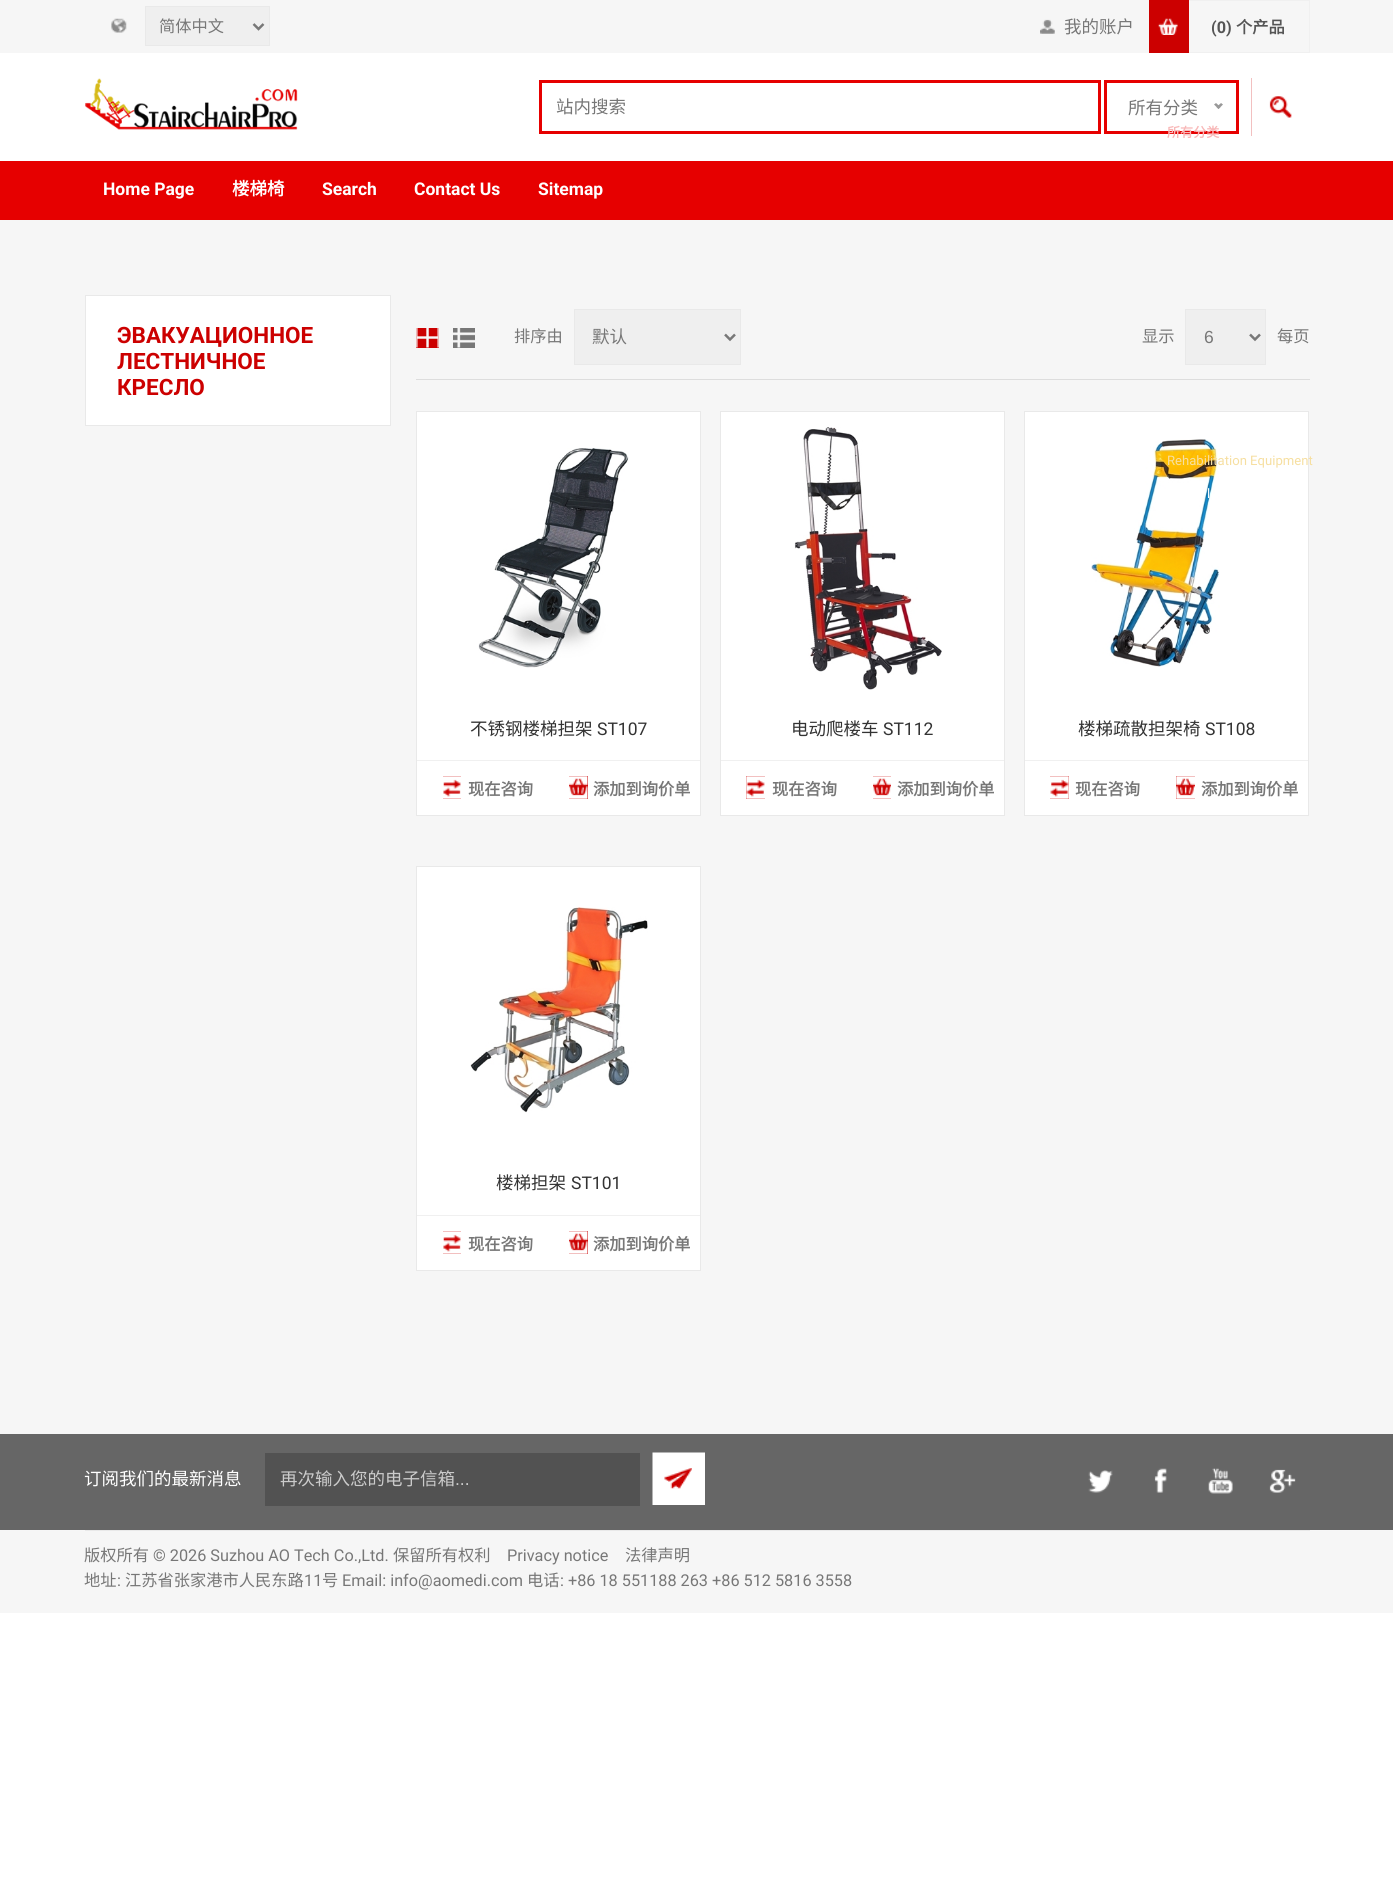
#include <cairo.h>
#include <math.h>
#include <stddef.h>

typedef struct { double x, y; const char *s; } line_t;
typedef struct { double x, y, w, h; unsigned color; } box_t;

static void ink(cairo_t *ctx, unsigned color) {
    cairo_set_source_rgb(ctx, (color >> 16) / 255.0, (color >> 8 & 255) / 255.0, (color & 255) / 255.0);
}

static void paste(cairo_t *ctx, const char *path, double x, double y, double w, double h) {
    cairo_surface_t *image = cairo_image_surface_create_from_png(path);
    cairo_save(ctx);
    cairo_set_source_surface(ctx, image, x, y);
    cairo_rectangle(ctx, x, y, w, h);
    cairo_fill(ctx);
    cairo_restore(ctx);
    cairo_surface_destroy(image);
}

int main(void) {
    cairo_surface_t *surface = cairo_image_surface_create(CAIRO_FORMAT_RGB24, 1393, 1888);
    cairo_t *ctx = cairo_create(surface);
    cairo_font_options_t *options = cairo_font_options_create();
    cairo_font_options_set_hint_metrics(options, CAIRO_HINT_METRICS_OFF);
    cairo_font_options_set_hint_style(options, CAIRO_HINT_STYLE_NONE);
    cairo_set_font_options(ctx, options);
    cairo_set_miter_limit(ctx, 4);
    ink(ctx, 0xFFFFFF);
    cairo_paint(ctx);
    ink(ctx, 0xF6F6F6);
    cairo_rectangle(ctx, 0, 0, 1393, 1613);
    cairo_fill(ctx);
    paste(ctx, "media/1.png", 111, 18, 16, 15);
    ink(ctx, 0xEFEFEF);
    cairo_rectangle(ctx, 145.5, 6.5, 124, 39);
    cairo_fill_preserve(ctx);
    ink(ctx, 0xE9E9E9);
    cairo_set_line_width(ctx, 1);
    cairo_stroke(ctx);
    cairo_new_path(ctx);
    cairo_move_to(ctx, 253.5, 24);
    cairo_line_to(ctx, 258.5, 29);
    cairo_line_to(ctx, 263.5, 24);
    ink(ctx, 0x777777);
    cairo_set_line_width(ctx, 2.5);
    cairo_stroke(ctx);
    cairo_select_font_face(ctx, "Noto Sans CJK SC", CAIRO_FONT_SLANT_NORMAL, CAIRO_FONT_WEIGHT_NORMAL);
    cairo_set_font_size(ctx, 16.25);
    cairo_move_to(ctx, 159, 32);
    cairo_show_text(ctx, "简体中文");
    paste(ctx, "media/2.png", 1040, 19, 15, 15);
    cairo_set_font_size(ctx, 17.5);
    cairo_move_to(ctx, 1064, 33);
    cairo_show_text(ctx, "我的账户");
    cairo_rectangle(ctx, 1188.5, 0.5, 121, 52);
    ink(ctx, 0xF0F0F0);
    cairo_set_line_width(ctx, 1);
    cairo_stroke(ctx);
    ink(ctx, 0xCC0000);
    cairo_rectangle(ctx, 1149, 0, 40, 53);
    cairo_fill(ctx);
    paste(ctx, "media/3.png", 1158, 18, 20, 17);
    cairo_select_font_face(ctx, "Roboto", CAIRO_FONT_SLANT_NORMAL, CAIRO_FONT_WEIGHT_BOLD);
    cairo_set_font_size(ctx, 16.25);
    ink(ctx, 0x555555);
    cairo_move_to(ctx, 1211, 33);
    cairo_show_text(ctx, "(0)");
    cairo_select_font_face(ctx, "Noto Sans CJK SC", CAIRO_FONT_SLANT_NORMAL, CAIRO_FONT_WEIGHT_BOLD);
    cairo_move_to(ctx, 1236, 33);
    cairo_show_text(ctx, "个产品");
    ink(ctx, 0xE60000);
    cairo_rectangle(ctx, 0, 161, 1393, 59);
    cairo_fill(ctx);
    cairo_select_font_face(ctx, "Roboto", CAIRO_FONT_SLANT_NORMAL, CAIRO_FONT_WEIGHT_BOLD);
    cairo_set_font_size(ctx, 17.5);
    ink(ctx, 0xFFFFFF);
    cairo_move_to(ctx, 103, 195);
    cairo_show_text(ctx, "Home Page");
    cairo_select_font_face(ctx, "Noto Sans CJK SC", CAIRO_FONT_SLANT_NORMAL, CAIRO_FONT_WEIGHT_BOLD);
    cairo_move_to(ctx, 232, 195);
    cairo_show_text(ctx, "楼梯椅");
    cairo_select_font_face(ctx, "Roboto", CAIRO_FONT_SLANT_NORMAL, CAIRO_FONT_WEIGHT_BOLD);
    {
        static const line_t items[] = {
            {322, 195, "Search"},
            {414, 195, "Contact Us"},
            {538, 195, "Sitemap"},
        };
        for (size_t i = 0; i < sizeof items / sizeof *items; i++) {
            cairo_move_to(ctx, items[i].x, items[i].y);
            cairo_show_text(ctx, items[i].s);
        }
    }
    cairo_rectangle(ctx, 0, 53, 1393, 108);
    cairo_fill(ctx);
    paste(ctx, "media/4.png", 85, 78, 213, 52);
    cairo_rectangle(ctx, 540.5, 81.5, 559, 51);
    ink(ctx, 0xE60000);
    cairo_set_line_width(ctx, 3);
    cairo_stroke(ctx);
    cairo_select_font_face(ctx, "Noto Sans CJK SC", CAIRO_FONT_SLANT_NORMAL, CAIRO_FONT_WEIGHT_NORMAL);
    ink(ctx, 0x777777);
    cairo_move_to(ctx, 556, 113);
    cairo_show_text(ctx, "站内搜索");
    ink(ctx, 0xCC0000);
    cairo_rectangle(ctx, 1251, 78, 41, 58);
    cairo_fill(ctx);
    paste(ctx, "media/5.png", 1251, 78, 59, 58);
    cairo_rectangle(ctx, 1105.5, 81.5, 132, 51);
    ink(ctx, 0xE60000);
    cairo_stroke(ctx);
    ink(ctx, 0x777777);
    cairo_move_to(ctx, 1128, 114);
    cairo_show_text(ctx, "所有分类");
    ink(ctx, 0x999999);
    cairo_new_path(ctx);
    cairo_move_to(ctx, 1221, 103);
    cairo_line_to(ctx, 1223, 104.5);
    cairo_line_to(ctx, 1218.5, 109);
    cairo_line_to(ctx, 1216.5, 107);
    cairo_close_path(ctx);
    cairo_fill(ctx);
    cairo_new_path(ctx);
    cairo_move_to(ctx, 1216, 103);
    cairo_line_to(ctx, 1220.5, 107);
    cairo_line_to(ctx, 1218.5, 109);
    cairo_line_to(ctx, 1214, 104.5);
    cairo_close_path(ctx);
    cairo_fill(ctx);
    cairo_select_font_face(ctx, "Noto Sans CJK SC", CAIRO_FONT_SLANT_NORMAL, CAIRO_FONT_WEIGHT_BOLD);
    cairo_set_font_size(ctx, 13.1);
    ink(ctx, 0xF8B8B8);
    cairo_move_to(ctx, 1167, 137);
    cairo_show_text(ctx, "所有分类");
    ink(ctx, 0xFFFFFF);
    cairo_rectangle(ctx, 1025, 412, 283, 348);
    cairo_fill(ctx);
    cairo_rectangle(ctx, 1024.5, 411.5, 284, 404);
    ink(ctx, 0xE9E9E9);
    cairo_set_line_width(ctx, 1);
    cairo_stroke(ctx);
    paste(ctx, "media/14.png", 1091, 439, 129, 228);
    cairo_select_font_face(ctx, "Roboto", CAIRO_FONT_SLANT_NORMAL, CAIRO_FONT_WEIGHT_NORMAL);
    ink(ctx, 0xF6DFA1);
    cairo_move_to(ctx, 1167, 465);
    cairo_show_text(ctx, "Rehabilitation Equipment");
    ink(ctx, 0xF7FBFD);
    cairo_move_to(ctx, 1207, 498);
    cairo_show_text(ctx, "l");
    ink(ctx, 0xFFFFFF);
    cairo_rectangle(ctx, 85.5, 295.5, 305, 130);
    cairo_fill_preserve(ctx);
    ink(ctx, 0xE9E9E9);
    cairo_stroke(ctx);
    cairo_select_font_face(ctx, "Roboto", CAIRO_FONT_SLANT_NORMAL, CAIRO_FONT_WEIGHT_BOLD);
    cairo_set_font_size(ctx, 22.5);
    ink(ctx, 0xCC0000);
    {
        static const line_t items[] = {
            {117, 343, "ЭВАКУАЦИОННОЕ"},
            {117, 369, "ЛЕСТНИЧНОЕ"},
            {117, 395, "КРЕСЛО"},
        };
        for (size_t i = 0; i < sizeof items / sizeof *items; i++) {
            cairo_move_to(ctx, items[i].x, items[i].y);
            cairo_show_text(ctx, items[i].s);
        }
    }
    ink(ctx, 0xDDDDDD);
    cairo_rectangle(ctx, 416, 379, 894, 1);
    cairo_fill(ctx);
    ink(ctx, 0xCC0000);
    cairo_rectangle(ctx, 416, 328, 23, 20);
    cairo_fill(ctx);
    paste(ctx, "media/6.png", 416, 328, 23, 20);
    ink(ctx, 0x777777);
    cairo_rectangle(ctx, 453, 328, 22, 20);
    cairo_fill(ctx);
    paste(ctx, "media/7.png", 453, 328, 22, 20);
    cairo_select_font_face(ctx, "Noto Sans CJK SC", CAIRO_FONT_SLANT_NORMAL, CAIRO_FONT_WEIGHT_NORMAL);
    cairo_set_font_size(ctx, 16.25);
    cairo_move_to(ctx, 514, 342);
    cairo_show_text(ctx, "排序由");
    ink(ctx, 0xEFEFEF);
    cairo_rectangle(ctx, 574.5, 309.5, 166, 55);
    cairo_fill_preserve(ctx);
    ink(ctx, 0xE9E9E9);
    cairo_stroke(ctx);
    cairo_new_path(ctx);
    cairo_move_to(ctx, 725, 334.5);
    cairo_line_to(ctx, 730, 339.5);
    cairo_line_to(ctx, 735, 334.5);
    ink(ctx, 0x777777);
    cairo_set_line_width(ctx, 2.5);
    cairo_stroke(ctx);
    cairo_set_font_size(ctx, 17.5);
    cairo_move_to(ctx, 592, 343);
    cairo_show_text(ctx, "默认");
    cairo_set_font_size(ctx, 16.25);
    cairo_move_to(ctx, 1142, 342);
    cairo_show_text(ctx, "显示");
    ink(ctx, 0xEFEFEF);
    cairo_rectangle(ctx, 1185.5, 309.5, 80, 55);
    cairo_fill_preserve(ctx);
    ink(ctx, 0xE9E9E9);
    cairo_set_line_width(ctx, 1);
    cairo_stroke(ctx);
    cairo_new_path(ctx);
    cairo_move_to(ctx, 1250, 334.5);
    cairo_line_to(ctx, 1255, 339.5);
    cairo_line_to(ctx, 1260, 334.5);
    ink(ctx, 0x777777);
    cairo_set_line_width(ctx, 2.5);
    cairo_stroke(ctx);
    cairo_select_font_face(ctx, "Liberation Sans", CAIRO_FONT_SLANT_NORMAL, CAIRO_FONT_WEIGHT_NORMAL);
    cairo_set_font_size(ctx, 17.5);
    cairo_move_to(ctx, 1204, 343);
    cairo_show_text(ctx, "6");
    cairo_select_font_face(ctx, "Noto Sans CJK SC", CAIRO_FONT_SLANT_NORMAL, CAIRO_FONT_WEIGHT_NORMAL);
    cairo_set_font_size(ctx, 16.25);
    cairo_move_to(ctx, 1277, 342);
    cairo_show_text(ctx, "每页");
    ink(ctx, 0xFFFFFF);
    cairo_rectangle(ctx, 417, 412, 283, 348);
    cairo_fill(ctx);
    cairo_rectangle(ctx, 416.5, 411.5, 284, 404);
    ink(ctx, 0xE9E9E9);
    cairo_set_line_width(ctx, 1);
    cairo_stroke(ctx);
    paste(ctx, "media/8.png", 478, 448, 151, 220);
    cairo_set_font_size(ctx, 17.5);
    ink(ctx, 0x333333);
    cairo_move_to(ctx, 470, 735);
    cairo_show_text(ctx, "不锈钢楼梯担架");
    cairo_select_font_face(ctx, "Roboto", CAIRO_FONT_SLANT_NORMAL, CAIRO_FONT_WEIGHT_NORMAL);
    cairo_move_to(ctx, 597, 735);
    cairo_show_text(ctx, "ST107");
    {
        static const box_t items[] = {
            {417, 761, 283, 54, 0xFFFFFF},
            {416, 760, 285, 1, 0xF0F0F0},
            {700, 760, 1, 1, 0xE9E9E9},
            {416, 760, 1, 1, 0xE9E9E9},
            {443, 776, 18, 23, 0xCC0000},
        };
        for (size_t i = 0; i < sizeof items / sizeof *items; i++) {
            ink(ctx, items[i].color);
            cairo_rectangle(ctx, items[i].x, items[i].y, items[i].w, items[i].h);
            cairo_fill(ctx);
        }
    }
    paste(ctx, "media/9.png", 443, 776, 18, 23);
    cairo_select_font_face(ctx, "Noto Sans CJK SC", CAIRO_FONT_SLANT_NORMAL, CAIRO_FONT_WEIGHT_BOLD);
    cairo_set_font_size(ctx, 16.25);
    ink(ctx, 0x777777);
    cairo_move_to(ctx, 468, 795);
    cairo_show_text(ctx, "现在咨询");
    ink(ctx, 0xCC0000);
    cairo_rectangle(ctx, 569, 776, 19, 23);
    cairo_fill(ctx);
    paste(ctx, "media/10.png", 569, 776, 19, 23);
    ink(ctx, 0x777777);
    cairo_move_to(ctx, 593, 795);
    cairo_show_text(ctx, "添加到询价单");
    ink(ctx, 0xFFFFFF);
    cairo_rectangle(ctx, 721, 412, 283, 348);
    cairo_fill(ctx);
    cairo_rectangle(ctx, 720.5, 411.5, 284, 404);
    ink(ctx, 0xE9E9E9);
    cairo_stroke(ctx);
    paste(ctx, "media/11.png", 794, 427, 148, 263);
    cairo_select_font_face(ctx, "Noto Sans CJK SC", CAIRO_FONT_SLANT_NORMAL, CAIRO_FONT_WEIGHT_NORMAL);
    cairo_set_font_size(ctx, 17.5);
    ink(ctx, 0x333333);
    cairo_move_to(ctx, 791, 735);
    cairo_show_text(ctx, "电动爬楼车");
    cairo_select_font_face(ctx, "Roboto", CAIRO_FONT_SLANT_NORMAL, CAIRO_FONT_WEIGHT_NORMAL);
    cairo_move_to(ctx, 883, 735);
    cairo_show_text(ctx, "ST112");
    {
        static const box_t items[] = {
            {721, 761, 283, 54, 0xFFFFFF},
            {720, 760, 285, 1, 0xF0F0F0},
            {1004, 760, 1, 1, 0xE9E9E9},
            {720, 760, 1, 1, 0xE9E9E9},
            {746, 776, 19, 23, 0xCC0000},
        };
        for (size_t i = 0; i < sizeof items / sizeof *items; i++) {
            ink(ctx, items[i].color);
            cairo_rectangle(ctx, items[i].x, items[i].y, items[i].w, items[i].h);
            cairo_fill(ctx);
        }
    }
    paste(ctx, "media/12.png", 746, 776, 19, 23);
    cairo_select_font_face(ctx, "Noto Sans CJK SC", CAIRO_FONT_SLANT_NORMAL, CAIRO_FONT_WEIGHT_BOLD);
    cairo_set_font_size(ctx, 16.25);
    ink(ctx, 0x777777);
    cairo_move_to(ctx, 772, 795);
    cairo_show_text(ctx, "现在咨询");
    ink(ctx, 0xCC0000);
    cairo_rectangle(ctx, 873, 776, 18, 23);
    cairo_fill(ctx);
    paste(ctx, "media/13.png", 873, 776, 18, 23);
    ink(ctx, 0x777777);
    cairo_move_to(ctx, 897, 795);
    cairo_show_text(ctx, "添加到询价单");
    cairo_select_font_face(ctx, "Noto Sans CJK SC", CAIRO_FONT_SLANT_NORMAL, CAIRO_FONT_WEIGHT_NORMAL);
    cairo_set_font_size(ctx, 17.5);
    ink(ctx, 0x333333);
    cairo_move_to(ctx, 1078, 735);
    cairo_show_text(ctx, "楼梯疏散担架椅");
    cairo_select_font_face(ctx, "Roboto", CAIRO_FONT_SLANT_NORMAL, CAIRO_FONT_WEIGHT_NORMAL);
    cairo_move_to(ctx, 1205, 735);
    cairo_show_text(ctx, "ST108");
    {
        static const box_t items[] = {
            {1025, 761, 283, 54, 0xFFFFFF},
            {1024, 760, 285, 1, 0xF0F0F0},
            {1308, 760, 1, 1, 0xE9E9E9},
            {1024, 760, 1, 1, 0xE9E9E9},
            {1050, 776, 19, 23, 0xCC0000},
        };
        for (size_t i = 0; i < sizeof items / sizeof *items; i++) {
            ink(ctx, items[i].color);
            cairo_rectangle(ctx, items[i].x, items[i].y, items[i].w, items[i].h);
            cairo_fill(ctx);
        }
    }
    paste(ctx, "media/15.png", 1050, 776, 19, 23);
    cairo_select_font_face(ctx, "Noto Sans CJK SC", CAIRO_FONT_SLANT_NORMAL, CAIRO_FONT_WEIGHT_BOLD);
    cairo_set_font_size(ctx, 16.25);
    ink(ctx, 0x777777);
    cairo_move_to(ctx, 1075, 795);
    cairo_show_text(ctx, "现在咨询");
    ink(ctx, 0xCC0000);
    cairo_rectangle(ctx, 1176, 776, 19, 23);
    cairo_fill(ctx);
    paste(ctx, "media/16.png", 1176, 776, 19, 23);
    ink(ctx, 0x777777);
    cairo_move_to(ctx, 1201, 795);
    cairo_show_text(ctx, "添加到询价单");
    ink(ctx, 0xFFFFFF);
    cairo_rectangle(ctx, 417, 867, 283, 348);
    cairo_fill(ctx);
    cairo_rectangle(ctx, 416.5, 866.5, 284, 404);
    ink(ctx, 0xE9E9E9);
    cairo_stroke(ctx);
    paste(ctx, "media/17.png", 470, 907, 178, 206);
    cairo_select_font_face(ctx, "Noto Sans CJK SC", CAIRO_FONT_SLANT_NORMAL, CAIRO_FONT_WEIGHT_NORMAL);
    cairo_set_font_size(ctx, 17.5);
    ink(ctx, 0x333333);
    cairo_move_to(ctx, 496, 1189);
    cairo_show_text(ctx, "楼梯担架");
    cairo_select_font_face(ctx, "Roboto", CAIRO_FONT_SLANT_NORMAL, CAIRO_FONT_WEIGHT_NORMAL);
    cairo_move_to(ctx, 571, 1189);
    cairo_show_text(ctx, "ST101");
    {
        static const box_t items[] = {
            {417, 1216, 283, 54, 0xFFFFFF},
            {416, 1215, 285, 1, 0xF0F0F0},
            {700, 1215, 1, 1, 0xE9E9E9},
            {416, 1215, 1, 1, 0xE9E9E9},
            {443, 1231, 18, 23, 0xCC0000},
        };
        for (size_t i = 0; i < sizeof items / sizeof *items; i++) {
            ink(ctx, items[i].color);
            cairo_rectangle(ctx, items[i].x, items[i].y, items[i].w, items[i].h);
            cairo_fill(ctx);
        }
    }
    paste(ctx, "media/18.png", 443, 1231, 18, 23);
    cairo_select_font_face(ctx, "Noto Sans CJK SC", CAIRO_FONT_SLANT_NORMAL, CAIRO_FONT_WEIGHT_BOLD);
    cairo_set_font_size(ctx, 16.25);
    ink(ctx, 0x777777);
    cairo_move_to(ctx, 468, 1250);
    cairo_show_text(ctx, "现在咨询");
    ink(ctx, 0xCC0000);
    cairo_rectangle(ctx, 569, 1231, 19, 23);
    cairo_fill(ctx);
    paste(ctx, "media/19.png", 569, 1231, 19, 23);
    ink(ctx, 0x777777);
    cairo_move_to(ctx, 593, 1250);
    cairo_show_text(ctx, "添加到询价单");
    ink(ctx, 0x666666);
    cairo_rectangle(ctx, 0, 1434, 1393, 96);
    cairo_fill(ctx);
    cairo_select_font_face(ctx, "Noto Sans CJK SC", CAIRO_FONT_SLANT_NORMAL, CAIRO_FONT_WEIGHT_NORMAL);
    cairo_set_font_size(ctx, 17.5);
    ink(ctx, 0xFFFFFF);
    cairo_move_to(ctx, 84, 1485);
    cairo_show_text(ctx, "订阅我们的最新消息");
    ink(ctx, 0x525252);
    cairo_rectangle(ctx, 265, 1453, 375, 53);
    cairo_fill(ctx);
    ink(ctx, 0xCBCBCB);
    cairo_move_to(ctx, 280, 1485);
    cairo_show_text(ctx, "再次输入您的电子信箱");
    cairo_select_font_face(ctx, "Liberation Sans", CAIRO_FONT_SLANT_NORMAL, CAIRO_FONT_WEIGHT_NORMAL);
    cairo_move_to(ctx, 455, 1485);
    cairo_show_text(ctx, "...");
    ink(ctx, 0xCC0000);
    cairo_rectangle(ctx, 664, 1468, 28, 21);
    cairo_fill(ctx);
    paste(ctx, "media/20.png", 652, 1452, 53, 53);
    paste(ctx, "media/21.png", 1088, 1470, 25, 23);
    paste(ctx, "media/22.png", 1154, 1468, 13, 25);
    paste(ctx, "media/23.png", 1208, 1468, 25, 26);
    paste(ctx, "media/24.png", 1269, 1469, 27, 24);
    ink(ctx, 0xE9E9E9);
    cairo_rectangle(ctx, 85, 1530, 1225, 1);
    cairo_fill(ctx);
    cairo_select_font_face(ctx, "Noto Sans CJK SC", CAIRO_FONT_SLANT_NORMAL, CAIRO_FONT_WEIGHT_NORMAL);
    cairo_set_font_size(ctx, 16.25);
    ink(ctx, 0x777777);
    cairo_move_to(ctx, 84, 1561);
    cairo_show_text(ctx, "版权所有");
    cairo_select_font_face(ctx, "Roboto", CAIRO_FONT_SLANT_NORMAL, CAIRO_FONT_WEIGHT_NORMAL);
    cairo_move_to(ctx, 153, 1561);
    cairo_show_text(ctx, "© 2026 Suzhou AO Tech Co.,Ltd.");
    cairo_select_font_face(ctx, "Noto Sans CJK SC", CAIRO_FONT_SLANT_NORMAL, CAIRO_FONT_WEIGHT_NORMAL);
    cairo_move_to(ctx, 393, 1561);
    cairo_show_text(ctx, "保留所有权利");
    cairo_select_font_face(ctx, "Roboto", CAIRO_FONT_SLANT_NORMAL, CAIRO_FONT_WEIGHT_NORMAL);
    cairo_move_to(ctx, 507, 1561);
    cairo_show_text(ctx, "Privacy notice");
    cairo_select_font_face(ctx, "Noto Sans CJK SC", CAIRO_FONT_SLANT_NORMAL, CAIRO_FONT_WEIGHT_NORMAL);
    cairo_move_to(ctx, 625, 1561);
    cairo_show_text(ctx, "法律声明");
    cairo_move_to(ctx, 84, 1586);
    cairo_show_text(ctx, "地址");
    cairo_select_font_face(ctx, "Roboto", CAIRO_FONT_SLANT_NORMAL, CAIRO_FONT_WEIGHT_NORMAL);
    cairo_move_to(ctx, 117, 1586);
    cairo_show_text(ctx, ":");
    cairo_select_font_face(ctx, "Noto Sans CJK SC", CAIRO_FONT_SLANT_NORMAL, CAIRO_FONT_WEIGHT_NORMAL);
    cairo_move_to(ctx, 125, 1586);
    cairo_show_text(ctx, "江苏省张家港市人民东路");
    cairo_select_font_face(ctx, "Roboto", CAIRO_FONT_SLANT_NORMAL, CAIRO_FONT_WEIGHT_NORMAL);
    cairo_move_to(ctx, 304, 1586);
    cairo_show_text(ctx, "11");
    cairo_select_font_face(ctx, "Noto Sans CJK SC", CAIRO_FONT_SLANT_NORMAL, CAIRO_FONT_WEIGHT_NORMAL);
    cairo_move_to(ctx, 322, 1586);
    cairo_show_text(ctx, "号");
    cairo_select_font_face(ctx, "Roboto", CAIRO_FONT_SLANT_NORMAL, CAIRO_FONT_WEIGHT_NORMAL);
    cairo_move_to(ctx, 342, 1586);
    cairo_show_text(ctx, "Email: info@aomedi.com");
    cairo_select_font_face(ctx, "Noto Sans CJK SC", CAIRO_FONT_SLANT_NORMAL, CAIRO_FONT_WEIGHT_NORMAL);
    cairo_move_to(ctx, 527, 1586);
    cairo_show_text(ctx, "电话");
    cairo_select_font_face(ctx, "Roboto", CAIRO_FONT_SLANT_NORMAL, CAIRO_FONT_WEIGHT_NORMAL);
    cairo_move_to(ctx, 560, 1586);
    cairo_show_text(ctx, ": +86 18 551188 263 +86 512 5816 3558");
    cairo_surface_write_to_png(surface, "image.png");
    cairo_font_options_destroy(options);
    cairo_destroy(ctx);
    cairo_surface_destroy(surface);
    return 0;
}
